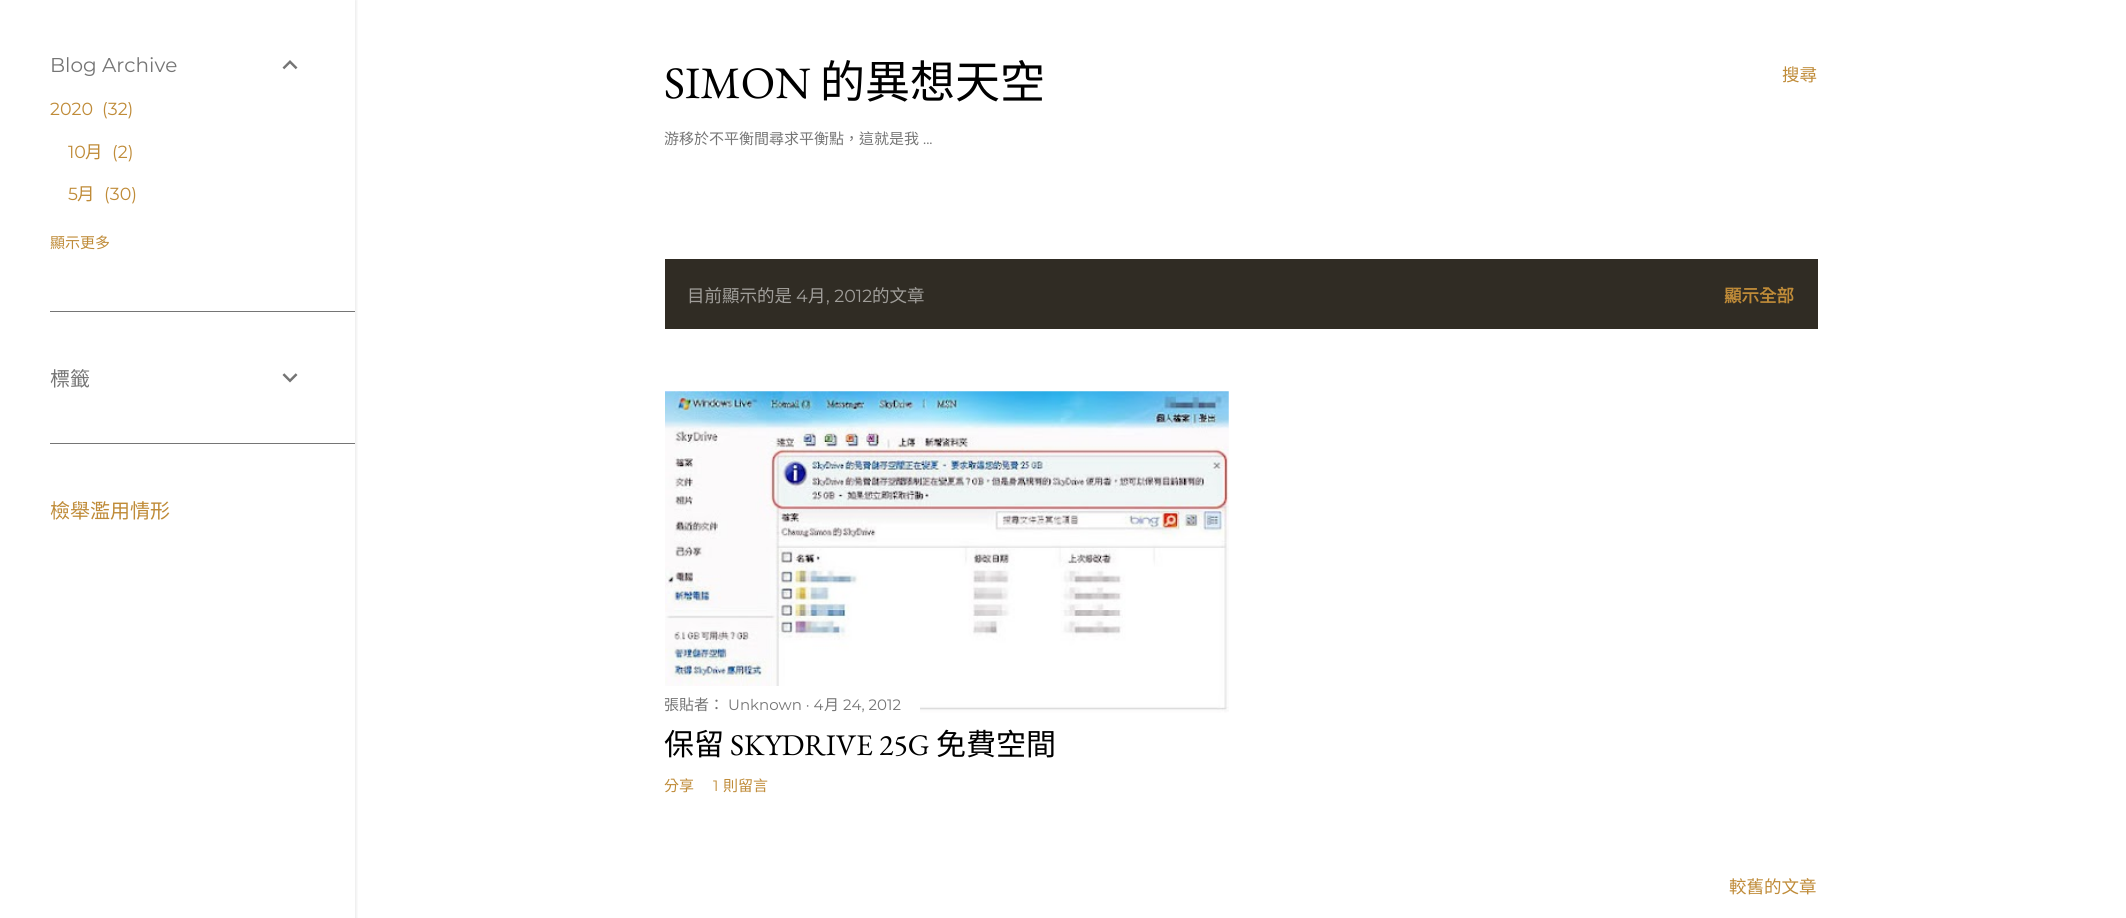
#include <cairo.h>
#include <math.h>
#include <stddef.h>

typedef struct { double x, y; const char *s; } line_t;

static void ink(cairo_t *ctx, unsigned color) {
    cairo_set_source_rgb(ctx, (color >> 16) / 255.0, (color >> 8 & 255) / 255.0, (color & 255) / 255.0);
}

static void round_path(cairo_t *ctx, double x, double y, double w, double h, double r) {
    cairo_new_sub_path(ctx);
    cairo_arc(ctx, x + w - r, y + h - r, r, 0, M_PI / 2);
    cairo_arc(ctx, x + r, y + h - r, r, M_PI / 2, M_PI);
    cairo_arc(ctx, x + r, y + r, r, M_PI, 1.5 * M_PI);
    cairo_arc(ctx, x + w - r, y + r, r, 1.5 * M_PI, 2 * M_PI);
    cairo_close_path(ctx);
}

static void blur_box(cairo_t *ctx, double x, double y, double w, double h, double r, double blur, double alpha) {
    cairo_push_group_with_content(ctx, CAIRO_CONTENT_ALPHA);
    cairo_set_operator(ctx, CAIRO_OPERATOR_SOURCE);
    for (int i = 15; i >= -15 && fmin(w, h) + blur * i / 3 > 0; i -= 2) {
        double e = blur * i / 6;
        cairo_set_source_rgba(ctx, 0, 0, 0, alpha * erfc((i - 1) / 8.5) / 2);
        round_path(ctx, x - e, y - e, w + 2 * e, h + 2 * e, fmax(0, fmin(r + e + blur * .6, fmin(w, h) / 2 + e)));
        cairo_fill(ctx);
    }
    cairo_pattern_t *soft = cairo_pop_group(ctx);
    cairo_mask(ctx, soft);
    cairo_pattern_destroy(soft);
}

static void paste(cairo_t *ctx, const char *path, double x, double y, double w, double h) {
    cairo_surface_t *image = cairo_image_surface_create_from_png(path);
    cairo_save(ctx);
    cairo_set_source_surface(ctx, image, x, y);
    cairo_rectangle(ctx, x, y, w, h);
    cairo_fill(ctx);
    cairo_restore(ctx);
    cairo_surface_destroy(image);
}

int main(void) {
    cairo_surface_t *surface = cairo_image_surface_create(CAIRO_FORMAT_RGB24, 2126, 918);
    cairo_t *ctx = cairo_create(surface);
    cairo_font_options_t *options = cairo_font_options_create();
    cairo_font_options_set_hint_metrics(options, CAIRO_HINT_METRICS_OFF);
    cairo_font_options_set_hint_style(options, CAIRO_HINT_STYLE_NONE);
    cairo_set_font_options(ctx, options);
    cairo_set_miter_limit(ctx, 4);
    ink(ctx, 0xFFFFFF);
    cairo_paint(ctx);
    cairo_save(ctx);
    cairo_rectangle(ctx, 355, 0, 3, 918);
    cairo_clip(ctx);
    ink(ctx, 0x000000);
    blur_box(ctx, 1, 0, 355, 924, 0, 2, 0.1);
    cairo_restore(ctx);
    cairo_select_font_face(ctx, "Montserrat", CAIRO_FONT_SLANT_NORMAL, CAIRO_FONT_WEIGHT_NORMAL);
    cairo_set_font_size(ctx, 20);
    ink(ctx, 0x757575);
    cairo_move_to(ctx, 50, 72);
    cairo_show_text(ctx, "Blog Archive");
    paste(ctx, "media/1.png", 282, 60, 16, 10);
    cairo_set_font_size(ctx, 17.5);
    ink(ctx, 0xBF8B38);
    {
        static const line_t items[] = {
            {50, 115, "2020"},
            {102, 115, "(32)"},
            {68, 158, "10"},
        };
        for (size_t i = 0; i < sizeof items / sizeof *items; i++) {
            cairo_move_to(ctx, items[i].x, items[i].y);
            cairo_show_text(ctx, items[i].s);
        }
    }
    cairo_select_font_face(ctx, "Noto Sans CJK TC", CAIRO_FONT_SLANT_NORMAL, CAIRO_FONT_WEIGHT_NORMAL);
    cairo_move_to(ctx, 85, 158);
    cairo_show_text(ctx, "月");
    cairo_select_font_face(ctx, "Montserrat", CAIRO_FONT_SLANT_NORMAL, CAIRO_FONT_WEIGHT_NORMAL);
    cairo_move_to(ctx, 112, 158);
    cairo_show_text(ctx, "(2)");
    cairo_move_to(ctx, 68, 200);
    cairo_show_text(ctx, "5");
    cairo_select_font_face(ctx, "Noto Sans CJK TC", CAIRO_FONT_SLANT_NORMAL, CAIRO_FONT_WEIGHT_NORMAL);
    cairo_move_to(ctx, 77, 200);
    cairo_show_text(ctx, "月");
    cairo_select_font_face(ctx, "Montserrat", CAIRO_FONT_SLANT_NORMAL, CAIRO_FONT_WEIGHT_NORMAL);
    cairo_move_to(ctx, 104, 200);
    cairo_show_text(ctx, "(30)");
    cairo_select_font_face(ctx, "Noto Sans CJK TC", CAIRO_FONT_SLANT_NORMAL, CAIRO_FONT_WEIGHT_NORMAL);
    cairo_set_font_size(ctx, 15);
    cairo_move_to(ctx, 50, 248);
    cairo_show_text(ctx, "顯示更多");
    ink(ctx, 0x757575);
    cairo_rectangle(ctx, 50, 311, 305, 1);
    cairo_fill(ctx);
    cairo_set_font_size(ctx, 20);
    cairo_move_to(ctx, 50, 386);
    cairo_show_text(ctx, "標籤");
    paste(ctx, "media/2.png", 282, 373, 16, 10);
    cairo_rectangle(ctx, 50, 443, 305, 1);
    cairo_fill(ctx);
    ink(ctx, 0xBF8B38);
    cairo_move_to(ctx, 50, 518);
    cairo_show_text(ctx, "檢舉濫用情形");
    cairo_select_font_face(ctx, "EB Garamond", CAIRO_FONT_SLANT_NORMAL, CAIRO_FONT_WEIGHT_NORMAL);
    cairo_set_font_size(ctx, 45);
    ink(ctx, 0x000000);
    cairo_move_to(ctx, 664, 98);
    cairo_show_text(ctx, "SIMON");
    cairo_select_font_face(ctx, "Noto Sans CJK TC", CAIRO_FONT_SLANT_NORMAL, CAIRO_FONT_WEIGHT_NORMAL);
    cairo_move_to(ctx, 820, 98);
    cairo_show_text(ctx, "的異想天空");
    cairo_set_font_size(ctx, 15);
    ink(ctx, 0x757575);
    cairo_move_to(ctx, 664, 144);
    cairo_show_text(ctx, "游移於不平衡間尋求平衡點，這就是我");
    cairo_select_font_face(ctx, "Montserrat", CAIRO_FONT_SLANT_NORMAL, CAIRO_FONT_WEIGHT_NORMAL);
    cairo_move_to(ctx, 923, 144);
    cairo_show_text(ctx, "...");
    cairo_select_font_face(ctx, "Noto Sans CJK TC", CAIRO_FONT_SLANT_NORMAL, CAIRO_FONT_WEIGHT_NORMAL);
    cairo_set_font_size(ctx, 17.5);
    ink(ctx, 0xBF8B38);
    cairo_move_to(ctx, 1782, 81);
    cairo_show_text(ctx, "搜尋");
    ink(ctx, 0x302C24);
    cairo_rectangle(ctx, 665, 259, 1153, 70);
    cairo_fill(ctx);
    ink(ctx, 0xA09E9A);
    cairo_move_to(ctx, 687, 302);
    cairo_show_text(ctx, "目前顯示的是");
    cairo_select_font_face(ctx, "Montserrat", CAIRO_FONT_SLANT_NORMAL, CAIRO_FONT_WEIGHT_NORMAL);
    cairo_move_to(ctx, 796, 302);
    cairo_show_text(ctx, "4");
    cairo_select_font_face(ctx, "Noto Sans CJK TC", CAIRO_FONT_SLANT_NORMAL, CAIRO_FONT_WEIGHT_NORMAL);
    cairo_move_to(ctx, 808, 302);
    cairo_show_text(ctx, "月");
    cairo_select_font_face(ctx, "Montserrat", CAIRO_FONT_SLANT_NORMAL, CAIRO_FONT_WEIGHT_NORMAL);
    cairo_move_to(ctx, 826, 302);
    cairo_show_text(ctx, ", 2012");
    cairo_select_font_face(ctx, "Noto Sans CJK TC", CAIRO_FONT_SLANT_NORMAL, CAIRO_FONT_WEIGHT_NORMAL);
    cairo_move_to(ctx, 872, 302);
    cairo_show_text(ctx, "的文章");
    cairo_select_font_face(ctx, "Noto Sans CJK TC", CAIRO_FONT_SLANT_NORMAL, CAIRO_FONT_WEIGHT_BOLD);
    ink(ctx, 0xBF8B38);
    cairo_move_to(ctx, 1724, 302);
    cairo_show_text(ctx, "顯示全部");
    paste(ctx, "media/3.png", 665, 391, 564, 322);
    ink(ctx, 0xFFFFFF);
    cairo_rectangle(ctx, 665, 686, 255, 27);
    cairo_fill(ctx);
    cairo_select_font_face(ctx, "Noto Sans CJK TC", CAIRO_FONT_SLANT_NORMAL, CAIRO_FONT_WEIGHT_NORMAL);
    cairo_set_font_size(ctx, 15);
    ink(ctx, 0x757575);
    cairo_move_to(ctx, 664, 710);
    cairo_show_text(ctx, "張貼者：");
    cairo_select_font_face(ctx, "Montserrat", CAIRO_FONT_SLANT_NORMAL, CAIRO_FONT_WEIGHT_NORMAL);
    cairo_move_to(ctx, 728, 710);
    cairo_show_text(ctx, "Unknown · 4");
    cairo_select_font_face(ctx, "Noto Sans CJK TC", CAIRO_FONT_SLANT_NORMAL, CAIRO_FONT_WEIGHT_NORMAL);
    cairo_move_to(ctx, 824, 710);
    cairo_show_text(ctx, "月");
    cairo_select_font_face(ctx, "Montserrat", CAIRO_FONT_SLANT_NORMAL, CAIRO_FONT_WEIGHT_NORMAL);
    cairo_move_to(ctx, 843, 710);
    cairo_show_text(ctx, "24, 2012");
    cairo_select_font_face(ctx, "Noto Sans CJK TC", CAIRO_FONT_SLANT_NORMAL, CAIRO_FONT_WEIGHT_NORMAL);
    cairo_set_font_size(ctx, 30);
    ink(ctx, 0x000000);
    cairo_move_to(ctx, 664, 755);
    cairo_show_text(ctx, "保留");
    cairo_select_font_face(ctx, "EB Garamond", CAIRO_FONT_SLANT_NORMAL, CAIRO_FONT_WEIGHT_NORMAL);
    cairo_move_to(ctx, 730, 755);
    cairo_show_text(ctx, "SKYDRIVE 25G");
    cairo_select_font_face(ctx, "Noto Sans CJK TC", CAIRO_FONT_SLANT_NORMAL, CAIRO_FONT_WEIGHT_NORMAL);
    cairo_move_to(ctx, 936, 755);
    cairo_show_text(ctx, "免費空間");
    cairo_set_font_size(ctx, 15);
    ink(ctx, 0xBF8B38);
    cairo_move_to(ctx, 664, 791);
    cairo_show_text(ctx, "分享");
    cairo_select_font_face(ctx, "Montserrat", CAIRO_FONT_SLANT_NORMAL, CAIRO_FONT_WEIGHT_NORMAL);
    cairo_move_to(ctx, 713, 791);
    cairo_show_text(ctx, "1");
    cairo_select_font_face(ctx, "Noto Sans CJK TC", CAIRO_FONT_SLANT_NORMAL, CAIRO_FONT_WEIGHT_NORMAL);
    cairo_move_to(ctx, 723, 791);
    cairo_show_text(ctx, "則留言");
    cairo_set_font_size(ctx, 17.5);
    cairo_move_to(ctx, 1729, 893);
    cairo_show_text(ctx, "較舊的文章");
    cairo_surface_write_to_png(surface, "image.png");
    cairo_font_options_destroy(options);
    cairo_destroy(ctx);
    cairo_surface_destroy(surface);
    return 0;
}
